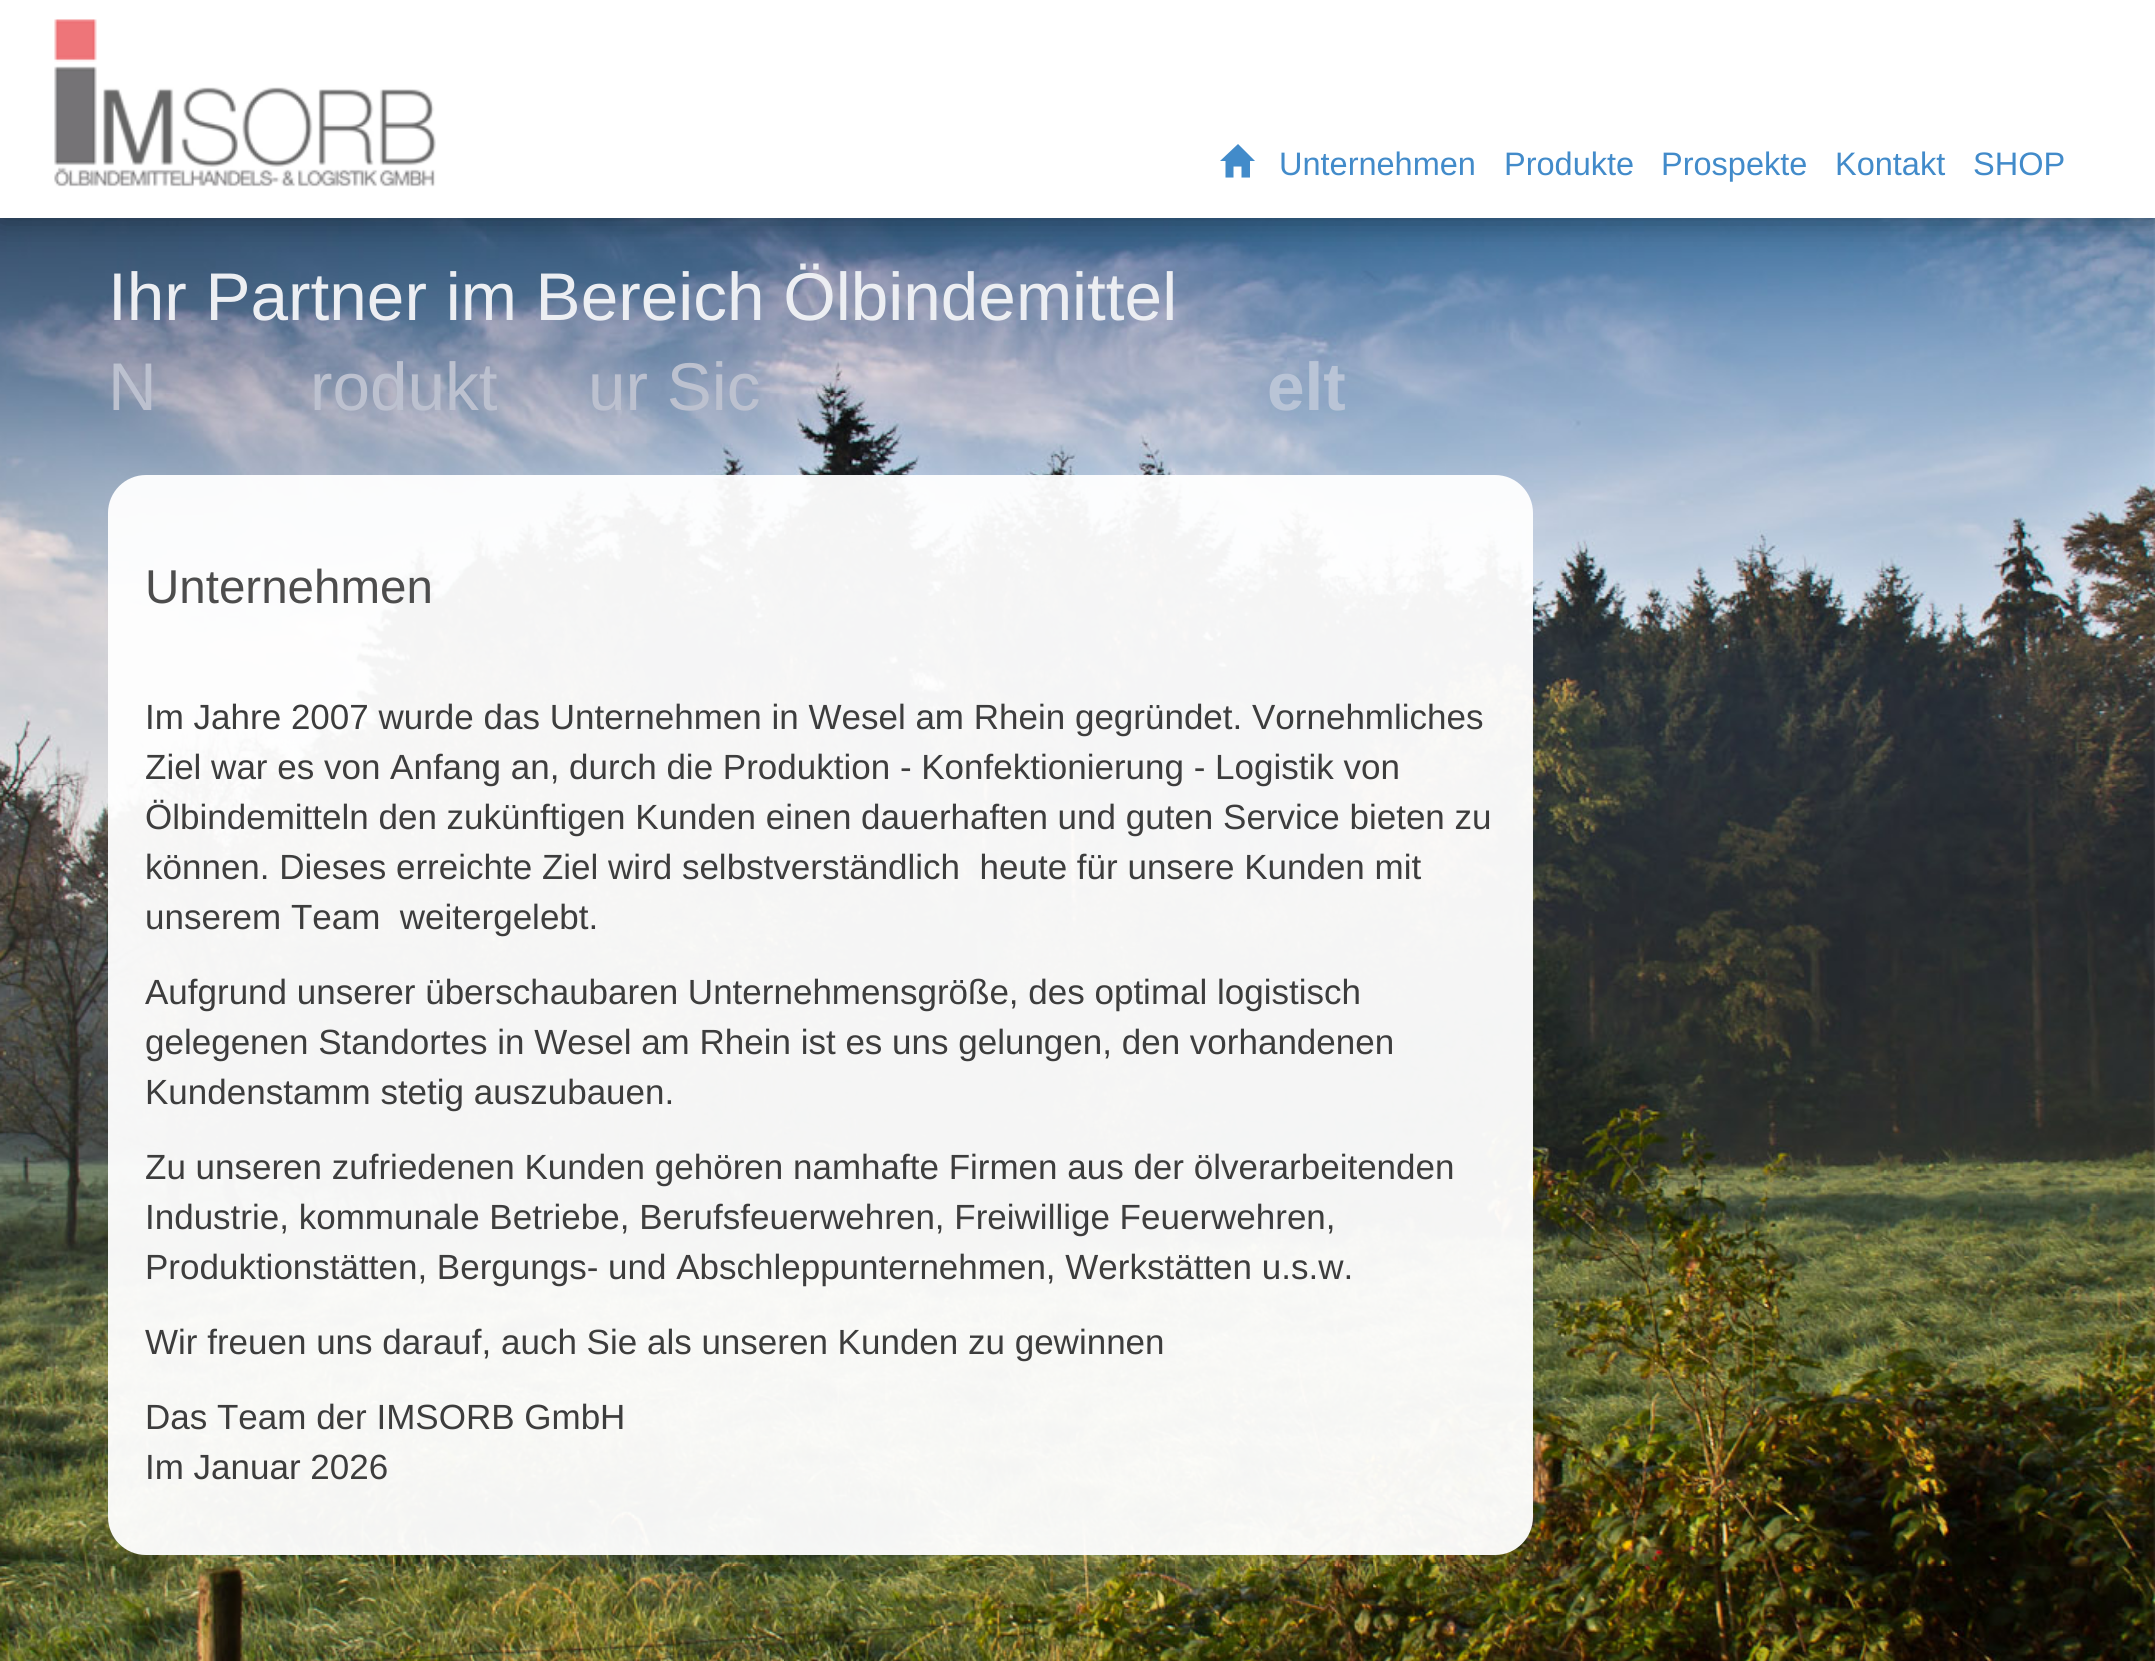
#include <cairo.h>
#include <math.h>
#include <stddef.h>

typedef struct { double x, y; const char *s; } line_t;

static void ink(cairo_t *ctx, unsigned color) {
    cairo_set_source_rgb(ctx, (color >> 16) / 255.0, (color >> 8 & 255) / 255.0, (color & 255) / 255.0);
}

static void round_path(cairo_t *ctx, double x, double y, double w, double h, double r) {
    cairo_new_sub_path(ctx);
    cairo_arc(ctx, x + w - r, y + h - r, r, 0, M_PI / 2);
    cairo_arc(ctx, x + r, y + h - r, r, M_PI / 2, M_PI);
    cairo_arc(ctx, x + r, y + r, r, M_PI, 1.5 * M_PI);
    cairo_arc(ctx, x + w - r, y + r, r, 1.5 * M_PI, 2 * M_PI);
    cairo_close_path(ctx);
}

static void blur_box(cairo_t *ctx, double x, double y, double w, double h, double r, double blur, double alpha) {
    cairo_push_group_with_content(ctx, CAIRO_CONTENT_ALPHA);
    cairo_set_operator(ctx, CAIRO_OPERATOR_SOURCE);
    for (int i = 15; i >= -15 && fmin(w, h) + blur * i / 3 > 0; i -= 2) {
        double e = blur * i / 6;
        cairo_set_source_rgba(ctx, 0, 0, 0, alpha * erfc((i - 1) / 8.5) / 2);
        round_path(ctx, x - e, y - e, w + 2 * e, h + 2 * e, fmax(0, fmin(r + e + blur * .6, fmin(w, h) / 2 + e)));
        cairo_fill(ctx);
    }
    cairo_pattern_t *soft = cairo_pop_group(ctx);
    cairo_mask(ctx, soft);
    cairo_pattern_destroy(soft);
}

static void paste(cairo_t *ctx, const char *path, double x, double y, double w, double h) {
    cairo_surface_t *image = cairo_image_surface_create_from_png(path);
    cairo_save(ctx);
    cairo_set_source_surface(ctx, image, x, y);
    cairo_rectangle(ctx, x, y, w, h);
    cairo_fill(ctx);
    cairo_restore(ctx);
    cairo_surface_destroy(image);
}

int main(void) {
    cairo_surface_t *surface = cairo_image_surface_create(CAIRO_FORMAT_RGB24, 2155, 1661);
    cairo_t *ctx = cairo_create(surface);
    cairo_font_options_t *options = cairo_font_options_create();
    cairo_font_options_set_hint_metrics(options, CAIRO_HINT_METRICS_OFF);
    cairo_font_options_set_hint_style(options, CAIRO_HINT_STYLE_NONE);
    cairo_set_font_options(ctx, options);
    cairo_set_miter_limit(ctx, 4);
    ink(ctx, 0xFFFFFF);
    cairo_paint(ctx);
    paste(ctx, "media/1.png", 0, 218, 2155, 1443);
    ink(ctx, 0x000000);
    blur_box(ctx, 0, 0, 2155, 218, 0, 16, 0.37);
    ink(ctx, 0xFFFFFF);
    cairo_rectangle(ctx, 0, 0, 2155, 218);
    cairo_fill(ctx);
    paste(ctx, "media/2.png", 54, 19, 382, 168);
    ink(ctx, 0x428BCA);
    cairo_new_path(ctx);
    cairo_move_to(ctx, 1220, 161);
    cairo_line_to(ctx, 1238, 144);
    cairo_line_to(ctx, 1255, 161);
    cairo_line_to(ctx, 1250, 161);
    cairo_line_to(ctx, 1250, 177.5);
    cairo_line_to(ctx, 1241.5, 177.5);
    cairo_line_to(ctx, 1241.5, 166.5);
    cairo_line_to(ctx, 1233.5, 166.5);
    cairo_line_to(ctx, 1233.5, 177.5);
    cairo_line_to(ctx, 1225.5, 177.5);
    cairo_line_to(ctx, 1225.5, 161);
    cairo_close_path(ctx);
    cairo_fill(ctx);
    cairo_select_font_face(ctx, "Liberation Sans", CAIRO_FONT_SLANT_NORMAL, CAIRO_FONT_WEIGHT_NORMAL);
    cairo_set_font_size(ctx, 32.5);
    {
        static const line_t items[] = {
            {1279, 175, "Unternehmen"},
            {1504, 175, "Produkte"},
            {1661, 175, "Prospekte"},
            {1835, 175, "Kontakt"},
            {1973, 175, "SHOP"},
        };
        for (size_t i = 0; i < sizeof items / sizeof *items; i++) {
            cairo_move_to(ctx, items[i].x, items[i].y);
            cairo_show_text(ctx, items[i].s);
        }
    }
    cairo_set_font_size(ctx, 67.5);
    ink(ctx, 0xECEEF2);
    cairo_move_to(ctx, 108, 320);
    cairo_show_text(ctx, "Ihr Partner im Bereich Ölbindemittel");
    ink(ctx, 0xBCC1CF);
    {
        static const line_t items[] = {
            {108, 410, "N"},
            {310, 410, "rodukt"},
            {588, 410, "ur Sic"},
        };
        for (size_t i = 0; i < sizeof items / sizeof *items; i++) {
            cairo_move_to(ctx, items[i].x, items[i].y);
            cairo_show_text(ctx, items[i].s);
        }
    }
    cairo_select_font_face(ctx, "Liberation Sans", CAIRO_FONT_SLANT_NORMAL, CAIRO_FONT_WEIGHT_BOLD);
    ink(ctx, 0xB9C4D6);
    cairo_move_to(ctx, 1267, 410);
    cairo_show_text(ctx, "elt");
    cairo_set_source_rgba(ctx, 1, 1, 1, 0.95);
    round_path(ctx, 108, 475, 1425, 1080, 38);
    cairo_fill(ctx);
    cairo_select_font_face(ctx, "Liberation Sans", CAIRO_FONT_SLANT_NORMAL, CAIRO_FONT_WEIGHT_NORMAL);
    cairo_set_font_size(ctx, 47.5);
    ink(ctx, 0x4D4D4D);
    cairo_move_to(ctx, 145, 603);
    cairo_show_text(ctx, "Unternehmen");
    cairo_set_font_size(ctx, 35);
    ink(ctx, 0x3D3D3D);
    {
        static const line_t items[] = {
            {145, 729, "Im Jahre 2007 wurde das Unternehmen in Wesel am Rhein gegründet. Vornehmliches"},
            {145, 779, "Ziel war es von Anfang an, durch die Produktion - Konfektionierung - Logistik von"},
            {145, 829, "Ölbindemitteln den zukünftigen Kunden einen dauerhaften und guten Service bieten zu"},
            {145, 879, "können. Dieses erreichte Ziel wird selbstverständlich  heute für unsere Kunden mit"},
            {145, 929, "unserem Team  weitergelebt."},
            {145, 1004, "Aufgrund unserer überschaubaren Unternehmensgröße, des optimal logistisch"},
            {145, 1054, "gelegenen Standortes in Wesel am Rhein ist es uns gelungen, den vorhandenen"},
            {145, 1104, "Kundenstamm stetig auszubauen."},
            {145, 1179, "Zu unseren zufriedenen Kunden gehören namhafte Firmen aus der ölverarbeitenden"},
            {145, 1229, "Industrie, kommunale Betriebe, Berufsfeuerwehren, Freiwillige Feuerwehren,"},
            {145, 1279, "Produktionstätten, Bergungs- und Abschleppunternehmen, Werkstätten u.s.w."},
            {145, 1354, "Wir freuen uns darauf, auch Sie als unseren Kunden zu gewinnen"},
            {145, 1429, "Das Team der IMSORB GmbH"},
            {145, 1479, "Im Januar 2026"},
        };
        for (size_t i = 0; i < sizeof items / sizeof *items; i++) {
            cairo_move_to(ctx, items[i].x, items[i].y);
            cairo_show_text(ctx, items[i].s);
        }
    }
    cairo_surface_write_to_png(surface, "image.png");
    cairo_font_options_destroy(options);
    cairo_destroy(ctx);
    cairo_surface_destroy(surface);
    return 0;
}
